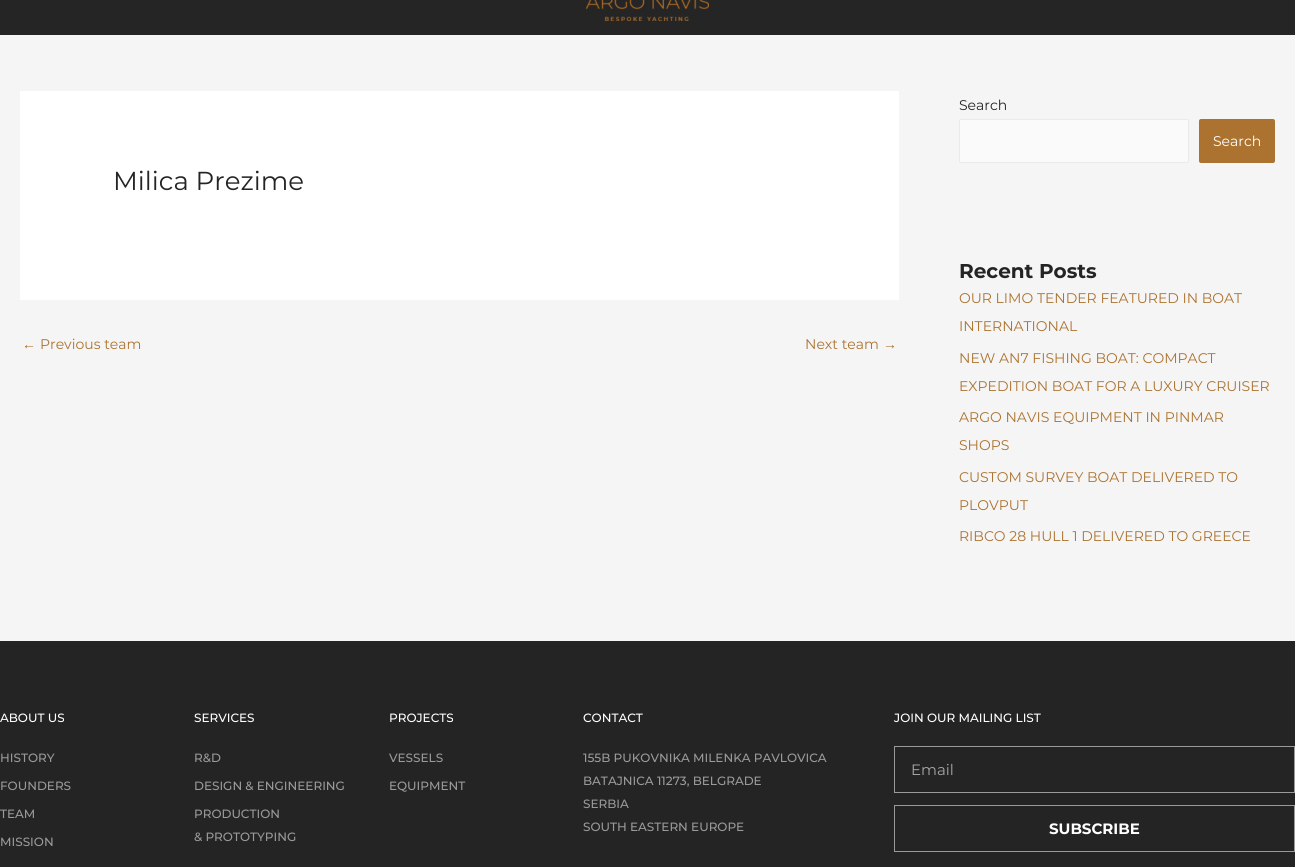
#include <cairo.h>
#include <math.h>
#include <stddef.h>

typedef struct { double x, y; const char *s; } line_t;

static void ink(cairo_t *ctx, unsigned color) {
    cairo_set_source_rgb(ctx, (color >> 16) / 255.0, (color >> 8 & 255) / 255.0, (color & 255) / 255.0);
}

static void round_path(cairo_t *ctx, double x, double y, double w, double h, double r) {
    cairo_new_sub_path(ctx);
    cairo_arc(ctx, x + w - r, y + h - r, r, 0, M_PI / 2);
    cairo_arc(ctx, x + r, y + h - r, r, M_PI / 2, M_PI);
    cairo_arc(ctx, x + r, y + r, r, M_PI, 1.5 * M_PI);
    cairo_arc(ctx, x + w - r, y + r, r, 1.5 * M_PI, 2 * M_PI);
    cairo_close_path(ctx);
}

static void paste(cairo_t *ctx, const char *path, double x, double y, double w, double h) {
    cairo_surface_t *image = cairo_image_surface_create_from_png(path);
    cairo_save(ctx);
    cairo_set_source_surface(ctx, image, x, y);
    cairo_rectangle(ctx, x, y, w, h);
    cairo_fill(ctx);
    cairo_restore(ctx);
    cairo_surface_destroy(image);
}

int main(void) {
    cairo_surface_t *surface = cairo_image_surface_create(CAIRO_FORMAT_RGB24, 1295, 867);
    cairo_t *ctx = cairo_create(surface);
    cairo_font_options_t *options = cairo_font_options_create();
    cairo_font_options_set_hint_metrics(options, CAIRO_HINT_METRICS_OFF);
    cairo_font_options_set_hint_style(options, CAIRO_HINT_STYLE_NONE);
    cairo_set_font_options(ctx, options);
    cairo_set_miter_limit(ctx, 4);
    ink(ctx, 0xF5F5F5);
    cairo_paint(ctx);
    ink(ctx, 0x252525);
    cairo_rectangle(ctx, 0, 0, 1295, 35);
    cairo_fill(ctx);
    paste(ctx, "media/1.png", 586, 0, 123, 21);
    ink(ctx, 0xFFFFFF);
    cairo_rectangle(ctx, 20, 91, 879, 209);
    cairo_fill(ctx);
    cairo_select_font_face(ctx, "Montserrat", CAIRO_FONT_SLANT_NORMAL, CAIRO_FONT_WEIGHT_NORMAL);
    cairo_set_font_size(ctx, 26);
    ink(ctx, 0x242424);
    cairo_move_to(ctx, 113, 190);
    cairo_show_text(ctx, "Milica Prezime");
    cairo_select_font_face(ctx, "Liberation Sans", CAIRO_FONT_SLANT_NORMAL, CAIRO_FONT_WEIGHT_NORMAL);
    cairo_set_font_size(ctx, 14);
    ink(ctx, 0xAC7330);
    cairo_move_to(ctx, 22, 349);
    cairo_show_text(ctx, "←");
    cairo_select_font_face(ctx, "Montserrat", CAIRO_FONT_SLANT_NORMAL, CAIRO_FONT_WEIGHT_NORMAL);
    cairo_move_to(ctx, 40, 349);
    cairo_show_text(ctx, "Previous team");
    cairo_move_to(ctx, 805, 349);
    cairo_show_text(ctx, "Next team");
    cairo_select_font_face(ctx, "Liberation Sans", CAIRO_FONT_SLANT_NORMAL, CAIRO_FONT_WEIGHT_NORMAL);
    cairo_move_to(ctx, 883, 349);
    cairo_show_text(ctx, "→");
    cairo_select_font_face(ctx, "Montserrat", CAIRO_FONT_SLANT_NORMAL, CAIRO_FONT_WEIGHT_NORMAL);
    ink(ctx, 0x242424);
    cairo_move_to(ctx, 959, 110);
    cairo_show_text(ctx, "Search");
    ink(ctx, 0xFAFAFA);
    round_path(ctx, 959.5, 119.5, 229, 43, 1.5);
    cairo_fill_preserve(ctx);
    ink(ctx, 0xEAEAEA);
    cairo_set_line_width(ctx, 1);
    cairo_stroke(ctx);
    ink(ctx, 0xAC7330);
    round_path(ctx, 1199, 119, 76, 44, 2);
    cairo_fill(ctx);
    ink(ctx, 0xFFFFFF);
    cairo_move_to(ctx, 1213, 146);
    cairo_show_text(ctx, "Search");
    cairo_select_font_face(ctx, "Montserrat", CAIRO_FONT_SLANT_NORMAL, CAIRO_FONT_WEIGHT_BOLD);
    cairo_set_font_size(ctx, 20);
    ink(ctx, 0x242424);
    cairo_move_to(ctx, 959, 278);
    cairo_show_text(ctx, "Recent Posts");
    cairo_select_font_face(ctx, "Montserrat", CAIRO_FONT_SLANT_NORMAL, CAIRO_FONT_WEIGHT_NORMAL);
    cairo_set_font_size(ctx, 14);
    ink(ctx, 0xAC7330);
    {
        static const line_t items[] = {
            {959, 303, "OUR LIMO TENDER FEATURED IN BOAT"},
            {959, 331, "INTERNATIONAL"},
            {959, 363, "NEW AN7 FISHING BOAT: COMPACT"},
            {959, 391, "EXPEDITION BOAT FOR A LUXURY CRUISER"},
            {959, 422, "ARGO NAVIS EQUIPMENT IN PINMAR"},
            {959, 450, "SHOPS"},
            {959, 482, "CUSTOM SURVEY BOAT DELIVERED TO"},
            {959, 510, "PLOVPUT"},
            {959, 541, "RIBCO 28 HULL 1 DELIVERED TO GREECE"},
        };
        for (size_t i = 0; i < sizeof items / sizeof *items; i++) {
            cairo_move_to(ctx, items[i].x, items[i].y);
            cairo_show_text(ctx, items[i].s);
        }
    }
    ink(ctx, 0x242424);
    cairo_rectangle(ctx, 0, 641, 1295, 226);
    cairo_fill(ctx);
    cairo_select_font_face(ctx, "Montserrat Medium", CAIRO_FONT_SLANT_NORMAL, CAIRO_FONT_WEIGHT_NORMAL);
    cairo_set_font_size(ctx, 12);
    ink(ctx, 0xFFFFFF);
    cairo_move_to(ctx, 0, 722);
    cairo_show_text(ctx, "ABOUT US");
    ink(ctx, 0x9A9A9A);
    {
        static const line_t items[] = {
            {0, 762, "HISTORY"},
            {0, 790, "FOUNDERS"},
            {0, 818, "TEAM"},
            {0, 846, "MISSION"},
        };
        for (size_t i = 0; i < sizeof items / sizeof *items; i++) {
            cairo_move_to(ctx, items[i].x, items[i].y);
            cairo_show_text(ctx, items[i].s);
        }
    }
    ink(ctx, 0xFFFFFF);
    cairo_move_to(ctx, 194, 722);
    cairo_show_text(ctx, "SERVICES");
    ink(ctx, 0x9A9A9A);
    {
        static const line_t items[] = {
            {194, 762, "R&D"},
            {194, 790, "DESIGN & ENGINEERING"},
            {194, 818, "PRODUCTION"},
            {194, 841, "& PROTOTYPING"},
        };
        for (size_t i = 0; i < sizeof items / sizeof *items; i++) {
            cairo_move_to(ctx, items[i].x, items[i].y);
            cairo_show_text(ctx, items[i].s);
        }
    }
    ink(ctx, 0xFFFFFF);
    cairo_move_to(ctx, 389, 722);
    cairo_show_text(ctx, "PROJECTS");
    ink(ctx, 0x9A9A9A);
    cairo_move_to(ctx, 389, 762);
    cairo_show_text(ctx, "VESSELS");
    cairo_move_to(ctx, 389, 790);
    cairo_show_text(ctx, "EQUIPMENT");
    ink(ctx, 0xFFFFFF);
    cairo_move_to(ctx, 583, 722);
    cairo_show_text(ctx, "CONTACT");
    ink(ctx, 0x9A9A9A);
    {
        static const line_t items[] = {
            {583, 762, "155B PUKOVNIKA MILENKA PAVLOVICA"},
            {583, 785, "BATAJNICA 11273, BELGRADE"},
            {583, 808, "SERBIA"},
            {583, 831, "SOUTH EASTERN EUROPE"},
        };
        for (size_t i = 0; i < sizeof items / sizeof *items; i++) {
            cairo_move_to(ctx, items[i].x, items[i].y);
            cairo_show_text(ctx, items[i].s);
        }
    }
    ink(ctx, 0xFFFFFF);
    cairo_move_to(ctx, 894, 722);
    cairo_show_text(ctx, "JOIN OUR MAILING LIST");
    cairo_rectangle(ctx, 894.5, 746.5, 400, 46);
    ink(ctx, 0x9A9A9A);
    cairo_stroke(ctx);
    cairo_select_font_face(ctx, "Montserrat", CAIRO_FONT_SLANT_NORMAL, CAIRO_FONT_WEIGHT_NORMAL);
    cairo_set_font_size(ctx, 15);
    ink(ctx, 0xA7A7A7);
    cairo_move_to(ctx, 911, 775);
    cairo_show_text(ctx, "Email");
    cairo_rectangle(ctx, 894.5, 805.5, 400, 46);
    ink(ctx, 0x9A9A9A);
    cairo_stroke(ctx);
    cairo_select_font_face(ctx, "Montserrat", CAIRO_FONT_SLANT_NORMAL, CAIRO_FONT_WEIGHT_BOLD);
    ink(ctx, 0xFFFFFF);
    cairo_move_to(ctx, 1049, 834);
    cairo_show_text(ctx, "SUBSCRIBE");
    cairo_surface_write_to_png(surface, "image.png");
    cairo_font_options_destroy(options);
    cairo_destroy(ctx);
    cairo_surface_destroy(surface);
    return 0;
}
